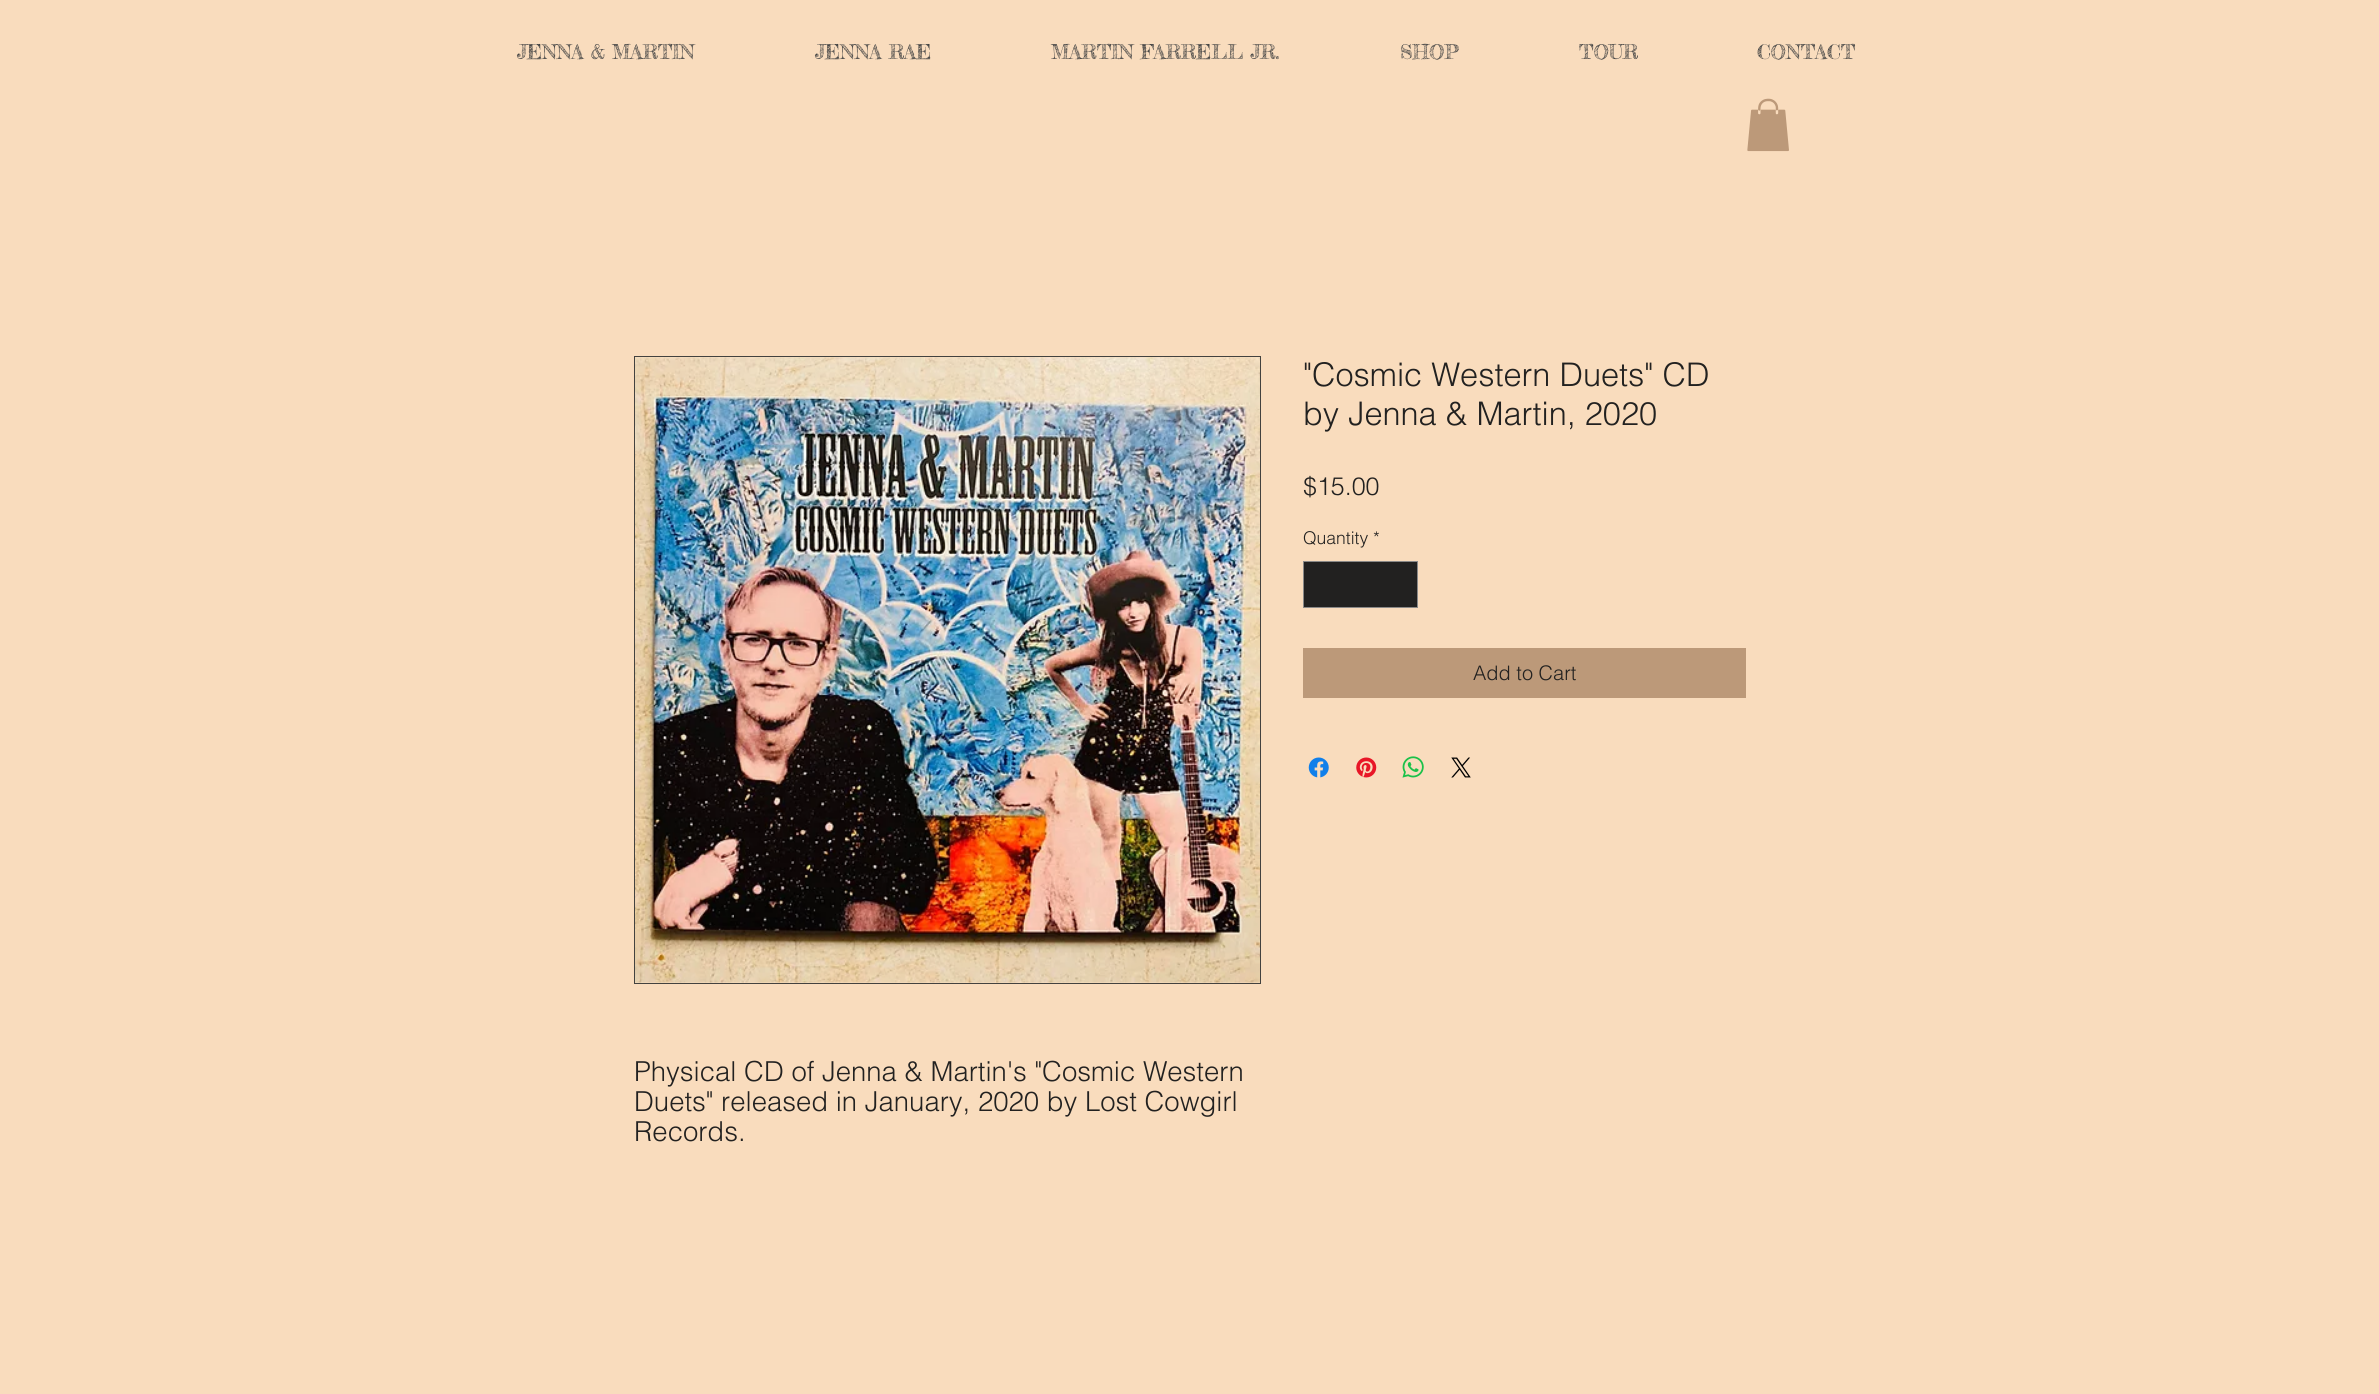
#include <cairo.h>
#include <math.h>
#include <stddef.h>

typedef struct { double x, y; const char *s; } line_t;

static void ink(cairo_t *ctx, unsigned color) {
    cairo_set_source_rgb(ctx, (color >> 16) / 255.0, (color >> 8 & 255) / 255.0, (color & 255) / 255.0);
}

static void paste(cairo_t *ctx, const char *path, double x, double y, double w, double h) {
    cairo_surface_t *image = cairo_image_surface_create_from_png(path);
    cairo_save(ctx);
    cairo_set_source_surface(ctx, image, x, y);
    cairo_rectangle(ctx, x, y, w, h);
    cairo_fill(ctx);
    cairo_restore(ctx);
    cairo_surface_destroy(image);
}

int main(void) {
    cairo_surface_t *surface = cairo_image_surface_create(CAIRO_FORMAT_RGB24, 2379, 1394);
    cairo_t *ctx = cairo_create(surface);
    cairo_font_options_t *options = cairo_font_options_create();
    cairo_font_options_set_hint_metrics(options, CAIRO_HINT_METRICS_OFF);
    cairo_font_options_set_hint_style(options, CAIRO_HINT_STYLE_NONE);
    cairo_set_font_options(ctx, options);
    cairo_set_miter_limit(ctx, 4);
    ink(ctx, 0xF9DCBD);
    cairo_paint(ctx);
    cairo_select_font_face(ctx, "Fredericka the Great", CAIRO_FONT_SLANT_NORMAL, CAIRO_FONT_WEIGHT_NORMAL);
    cairo_set_font_size(ctx, 20);
    ink(ctx, 0x424242);
    {
        static const line_t items[] = {
            {517, 59, "JENNA & MARTIN"},
            {815, 59, "JENNA RAE"},
            {1051, 59, "MARTIN FARRELL JR."},
            {1400, 59, "SHOP"},
            {1579, 59, "TOUR"},
            {1757, 59, "CONTACT"},
        };
        for (size_t i = 0; i < sizeof items / sizeof *items; i++) {
            cairo_move_to(ctx, items[i].x, items[i].y);
            cairo_show_text(ctx, items[i].s);
        }
    }
    paste(ctx, "media/1.png", 1747, 98, 42, 54);
    cairo_select_font_face(ctx, "helvetica Light", CAIRO_FONT_SLANT_NORMAL, CAIRO_FONT_WEIGHT_NORMAL);
    cairo_set_font_size(ctx, 32.5);
    ink(ctx, 0x222120);
    cairo_move_to(ctx, 1303, 386);
    cairo_show_text(ctx, "\"Cosmic Western Duets\" CD");
    cairo_move_to(ctx, 1303, 425);
    cairo_show_text(ctx, "by Jenna & Martin, 2020");
    cairo_set_font_size(ctx, 25);
    cairo_move_to(ctx, 1303, 495);
    cairo_show_text(ctx, "$15.00");
    cairo_set_font_size(ctx, 17.5);
    cairo_move_to(ctx, 1303, 544);
    cairo_show_text(ctx, "Quantity *");
    cairo_rectangle(ctx, 1303.5, 561.5, 114, 46);
    cairo_fill_preserve(ctx);
    ink(ctx, 0x8A8988);
    cairo_set_line_width(ctx, 1);
    cairo_stroke(ctx);
    ink(ctx, 0xBC9979);
    cairo_rectangle(ctx, 1303, 648, 443, 50);
    cairo_fill(ctx);
    cairo_set_font_size(ctx, 20);
    ink(ctx, 0x222120);
    cairo_move_to(ctx, 1473, 680);
    cairo_show_text(ctx, "Add to Cart");
    paste(ctx, "media/2.png", 1308, 757, 21, 21);
    paste(ctx, "media/3.png", 1356, 757, 21, 21);
    paste(ctx, "media/4.png", 1402, 756, 22, 22);
    paste(ctx, "media/5.png", 1451, 757, 20, 21);
    cairo_rectangle(ctx, 634.5, 356.5, 626, 627);
    ink(ctx, 0x43423F);
    cairo_stroke(ctx);
    paste(ctx, "media/6.png", 635, 357, 625, 626);
    cairo_set_font_size(ctx, 27.5);
    ink(ctx, 0x222120);
    {
        static const line_t items[] = {
            {634, 1081, "Physical CD of Jenna & Martin's \"Cosmic Western"},
            {634, 1111, "Duets\" released in January, 2020 by Lost Cowgirl"},
            {634, 1141, "Records."},
        };
        for (size_t i = 0; i < sizeof items / sizeof *items; i++) {
            cairo_move_to(ctx, items[i].x, items[i].y);
            cairo_show_text(ctx, items[i].s);
        }
    }
    cairo_surface_write_to_png(surface, "image.png");
    cairo_font_options_destroy(options);
    cairo_destroy(ctx);
    cairo_surface_destroy(surface);
    return 0;
}
